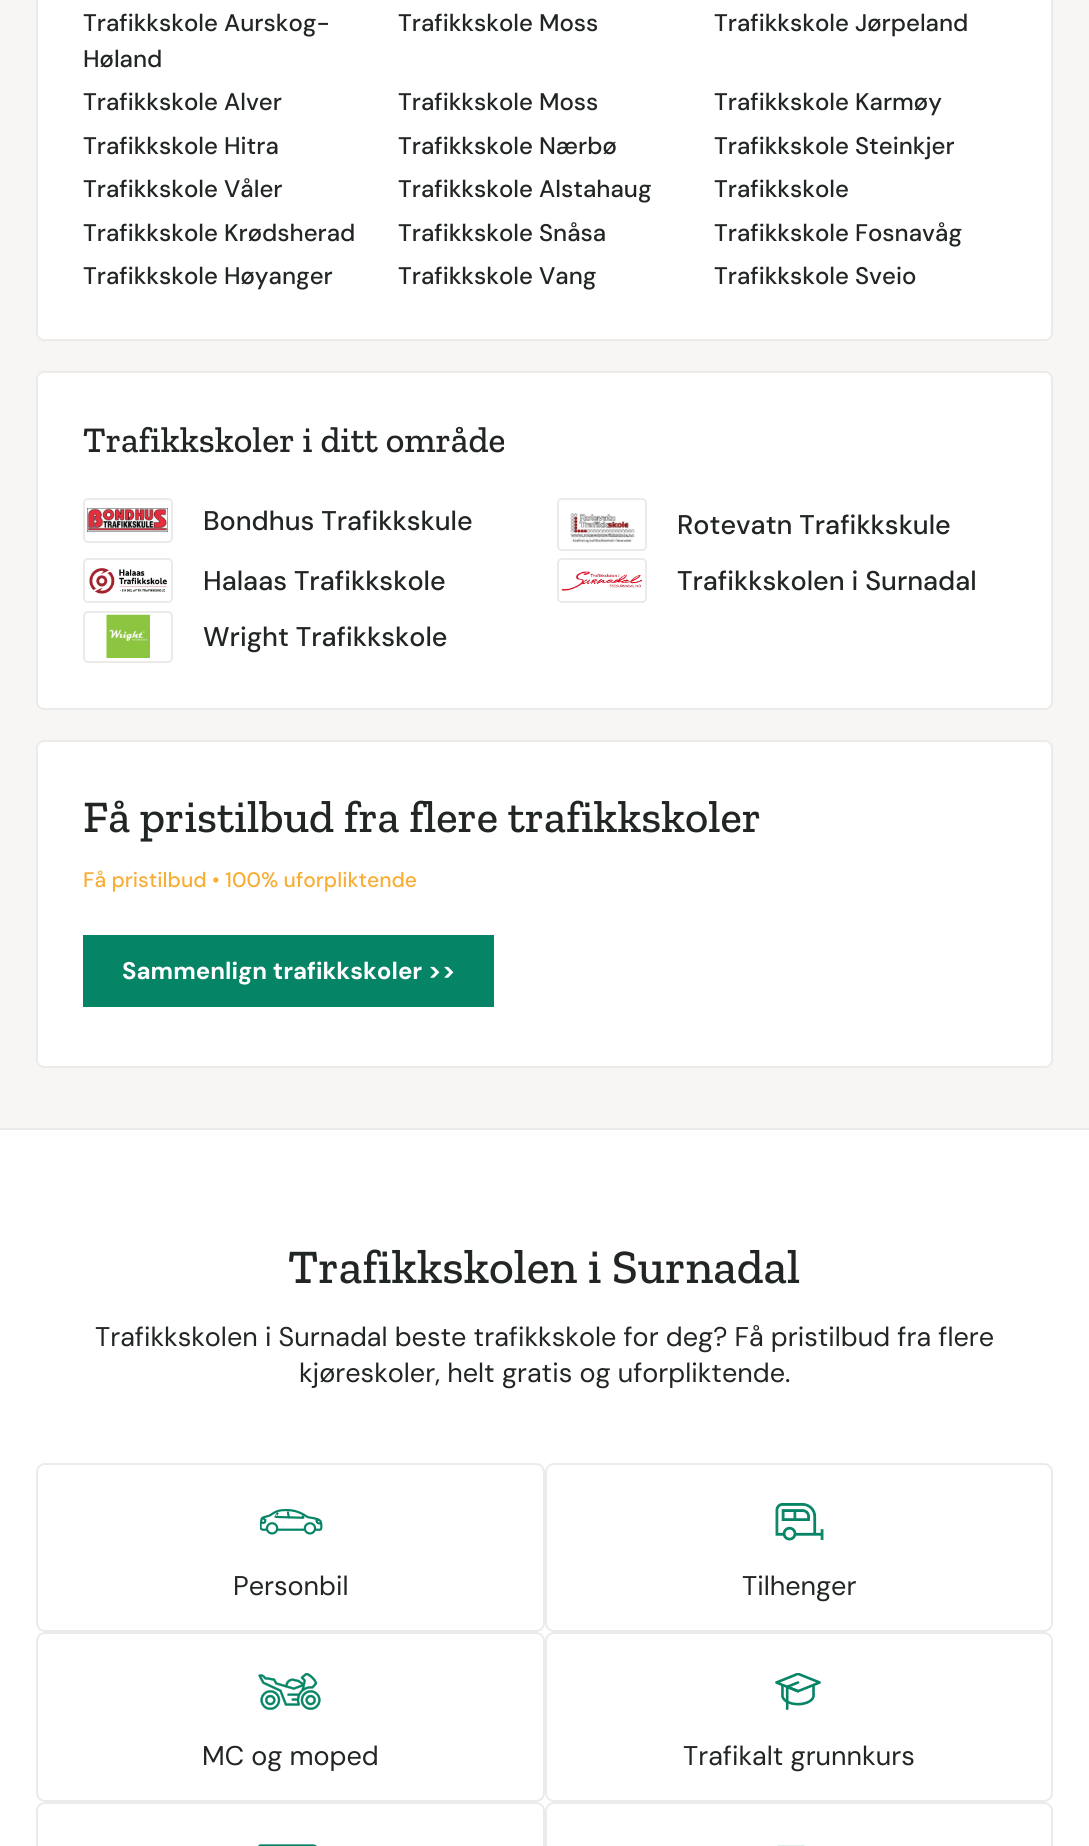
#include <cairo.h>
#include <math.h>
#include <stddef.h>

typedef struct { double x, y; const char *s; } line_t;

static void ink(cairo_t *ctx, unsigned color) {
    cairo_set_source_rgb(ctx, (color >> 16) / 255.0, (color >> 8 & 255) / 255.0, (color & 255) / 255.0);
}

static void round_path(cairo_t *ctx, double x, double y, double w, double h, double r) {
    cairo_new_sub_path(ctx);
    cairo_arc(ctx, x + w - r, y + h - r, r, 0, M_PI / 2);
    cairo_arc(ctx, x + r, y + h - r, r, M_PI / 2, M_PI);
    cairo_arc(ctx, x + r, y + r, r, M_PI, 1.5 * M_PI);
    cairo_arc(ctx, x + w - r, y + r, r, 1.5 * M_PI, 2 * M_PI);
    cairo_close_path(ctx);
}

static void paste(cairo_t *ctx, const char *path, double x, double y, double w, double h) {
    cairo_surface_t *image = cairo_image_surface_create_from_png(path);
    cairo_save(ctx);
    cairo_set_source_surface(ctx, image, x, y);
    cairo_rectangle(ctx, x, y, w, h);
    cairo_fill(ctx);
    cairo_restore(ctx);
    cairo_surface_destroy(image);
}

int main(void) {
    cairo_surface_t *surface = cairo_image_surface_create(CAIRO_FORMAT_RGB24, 1089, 1846);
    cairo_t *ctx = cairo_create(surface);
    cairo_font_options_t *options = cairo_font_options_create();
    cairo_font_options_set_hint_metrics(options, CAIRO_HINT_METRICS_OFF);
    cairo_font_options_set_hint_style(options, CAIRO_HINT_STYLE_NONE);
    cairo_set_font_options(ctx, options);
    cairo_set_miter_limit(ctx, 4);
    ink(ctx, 0xFFFFFF);
    cairo_paint(ctx);
    ink(ctx, 0xF8F6F4);
    cairo_rectangle(ctx, 0, 0, 1089, 1128);
    cairo_fill(ctx);
    ink(ctx, 0xFFFFFF);
    round_path(ctx, 37, -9, 1015, 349, 7);
    cairo_fill_preserve(ctx);
    ink(ctx, 0xECEBEA);
    cairo_stroke(ctx);
    cairo_select_font_face(ctx, "DM Sans Medium", CAIRO_FONT_SLANT_NORMAL, CAIRO_FONT_WEIGHT_NORMAL);
    cairo_set_font_size(ctx, 24);
    ink(ctx, 0x222525);
    {
        static const line_t items[] = {
            {83, 31, "Trafikkskole Aurskog-"},
            {83, 67, "Høland"},
            {398, 31, "Trafikkskole Moss"},
            {714, 31, "Trafikkskole Jørpeland"},
            {83, 110, "Trafikkskole Alver"},
            {398, 110, "Trafikkskole Moss"},
            {714, 110, "Trafikkskole Karmøy"},
            {83, 154, "Trafikkskole Hitra"},
            {398, 154, "Trafikkskole Nærbø"},
            {714, 154, "Trafikkskole Steinkjer"},
            {83, 197, "Trafikkskole Våler"},
            {398, 197, "Trafikkskole Alstahaug"},
            {714, 197, "Trafikkskole"},
            {83, 241, "Trafikkskole Krødsherad"},
            {398, 241, "Trafikkskole Snåsa"},
            {714, 241, "Trafikkskole Fosnavåg"},
            {83, 284, "Trafikkskole Høyanger"},
            {398, 284, "Trafikkskole Vang"},
            {714, 284, "Trafikkskole Sveio"},
        };
        for (size_t i = 0; i < sizeof items / sizeof *items; i++) {
            cairo_move_to(ctx, items[i].x, items[i].y);
            cairo_show_text(ctx, items[i].s);
        }
    }
    ink(ctx, 0xFFFFFF);
    round_path(ctx, 37, 372, 1015, 337, 7);
    cairo_fill_preserve(ctx);
    ink(ctx, 0xECEBEA);
    cairo_stroke(ctx);
    cairo_select_font_face(ctx, "Zilla Slab Medium", CAIRO_FONT_SLANT_NORMAL, CAIRO_FONT_WEIGHT_NORMAL);
    cairo_set_font_size(ctx, 36);
    ink(ctx, 0x222525);
    cairo_move_to(ctx, 83, 452);
    cairo_show_text(ctx, "Trafikkskoler i ditt område");
    round_path(ctx, 84, 499, 88, 43, 4);
    ink(ctx, 0xECEBEA);
    cairo_stroke(ctx);
    paste(ctx, "media/1.png", 87, 508, 81, 24);
    cairo_select_font_face(ctx, "DM Sans Medium", CAIRO_FONT_SLANT_NORMAL, CAIRO_FONT_WEIGHT_NORMAL);
    cairo_set_font_size(ctx, 27);
    ink(ctx, 0x222525);
    cairo_move_to(ctx, 203, 530);
    cairo_show_text(ctx, "Bondhus Trafikkskule");
    round_path(ctx, 558, 499, 88, 51, 4);
    ink(ctx, 0xECEBEA);
    cairo_stroke(ctx);
    paste(ctx, "media/2.png", 570, 513, 65, 31);
    ink(ctx, 0x222525);
    cairo_move_to(ctx, 677, 534);
    cairo_show_text(ctx, "Rotevatn Trafikkskule");
    round_path(ctx, 84, 559, 88, 43, 4);
    ink(ctx, 0xECEBEA);
    cairo_stroke(ctx);
    paste(ctx, "media/3.png", 89, 568, 78, 26);
    ink(ctx, 0x222525);
    cairo_move_to(ctx, 203, 590);
    cairo_show_text(ctx, "Halaas Trafikkskole");
    round_path(ctx, 558, 559, 88, 43, 4);
    ink(ctx, 0xECEBEA);
    cairo_stroke(ctx);
    paste(ctx, "media/4.png", 561, 571, 81, 20);
    ink(ctx, 0x222525);
    cairo_move_to(ctx, 677, 590);
    cairo_show_text(ctx, "Trafikkskolen i Surnadal");
    round_path(ctx, 84, 612, 88, 50, 4);
    ink(ctx, 0xECEBEA);
    cairo_stroke(ctx);
    paste(ctx, "media/5.png", 106, 614, 44, 44);
    ink(ctx, 0x222525);
    cairo_move_to(ctx, 203, 646);
    cairo_show_text(ctx, "Wright Trafikkskole");
    ink(ctx, 0xFFFFFF);
    round_path(ctx, 37, 741, 1015, 326, 7);
    cairo_fill_preserve(ctx);
    ink(ctx, 0xECEBEA);
    cairo_stroke(ctx);
    cairo_select_font_face(ctx, "Zilla Slab Medium", CAIRO_FONT_SLANT_NORMAL, CAIRO_FONT_WEIGHT_NORMAL);
    cairo_set_font_size(ctx, 45);
    ink(ctx, 0x222525);
    cairo_move_to(ctx, 83, 832);
    cairo_show_text(ctx, "Få pristilbud fra flere trafikkskoler");
    cairo_select_font_face(ctx, "DM Sans Medium", CAIRO_FONT_SLANT_NORMAL, CAIRO_FONT_WEIGHT_NORMAL);
    cairo_set_font_size(ctx, 21);
    ink(ctx, 0xF8AD34);
    cairo_move_to(ctx, 83, 887);
    cairo_show_text(ctx, "Få pristilbud • 100% uforpliktende");
    ink(ctx, 0x068466);
    cairo_rectangle(ctx, 83, 935, 411, 72);
    cairo_fill(ctx);
    cairo_select_font_face(ctx, "DM Sans", CAIRO_FONT_SLANT_NORMAL, CAIRO_FONT_WEIGHT_BOLD);
    cairo_set_font_size(ctx, 24);
    ink(ctx, 0xFFFFFF);
    cairo_move_to(ctx, 122, 979);
    cairo_show_text(ctx, "Sammenlign trafikkskoler >>");
    ink(ctx, 0xECEBEA);
    cairo_rectangle(ctx, 0, 1128, 1089, 2);
    cairo_fill(ctx);
    cairo_select_font_face(ctx, "Zilla Slab Medium", CAIRO_FONT_SLANT_NORMAL, CAIRO_FONT_WEIGHT_NORMAL);
    cairo_set_font_size(ctx, 48);
    ink(ctx, 0x222525);
    cairo_move_to(ctx, 288, 1283);
    cairo_show_text(ctx, "Trafikkskolen i Surnadal");
    cairo_select_font_face(ctx, "DM Sans", CAIRO_FONT_SLANT_NORMAL, CAIRO_FONT_WEIGHT_NORMAL);
    cairo_set_font_size(ctx, 27);
    cairo_move_to(ctx, 95, 1346);
    cairo_show_text(ctx, "Trafikkskolen i Surnadal beste trafikkskole for deg? Få pristilbud fra flere");
    cairo_move_to(ctx, 299, 1382);
    cairo_show_text(ctx, "kjøreskoler, helt gratis og uforpliktende.");
    round_path(ctx, 37, 1464, 507, 167, 8);
    ink(ctx, 0xECEBEA);
    cairo_stroke(ctx);
    paste(ctx, "media/6.png", 260, 1508, 63, 27);
    ink(ctx, 0x222525);
    cairo_move_to(ctx, 233, 1595);
    cairo_show_text(ctx, "Personbil");
    round_path(ctx, 546, 1464, 506, 167, 8);
    ink(ctx, 0xECEBEA);
    cairo_stroke(ctx);
    paste(ctx, "media/7.png", 775, 1503, 49, 38);
    ink(ctx, 0x222525);
    cairo_move_to(ctx, 742, 1595);
    cairo_show_text(ctx, "Tilhenger");
    round_path(ctx, 37, 1633, 507, 168, 8);
    ink(ctx, 0xECEBEA);
    cairo_stroke(ctx);
    paste(ctx, "media/8.png", 258, 1673, 63, 37);
    ink(ctx, 0x222525);
    cairo_move_to(ctx, 202, 1765);
    cairo_show_text(ctx, "MC og moped");
    round_path(ctx, 546, 1633, 506, 168, 8);
    ink(ctx, 0xECEBEA);
    cairo_stroke(ctx);
    paste(ctx, "media/9.png", 775, 1673, 46, 37);
    ink(ctx, 0x222525);
    cairo_move_to(ctx, 683, 1765);
    cairo_show_text(ctx, "Trafikalt grunnkurs");
    round_path(ctx, 37, 1803, 507, 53, 8);
    ink(ctx, 0xECEBEA);
    cairo_stroke(ctx);
    paste(ctx, "media/10.png", 258, 1844, 59, 2);
    round_path(ctx, 546, 1803, 506, 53, 8);
    cairo_stroke(ctx);
    paste(ctx, "media/11.png", 777, 1845, 28, 1);
    cairo_surface_write_to_png(surface, "image.png");
    cairo_font_options_destroy(options);
    cairo_destroy(ctx);
    cairo_surface_destroy(surface);
    return 0;
}
